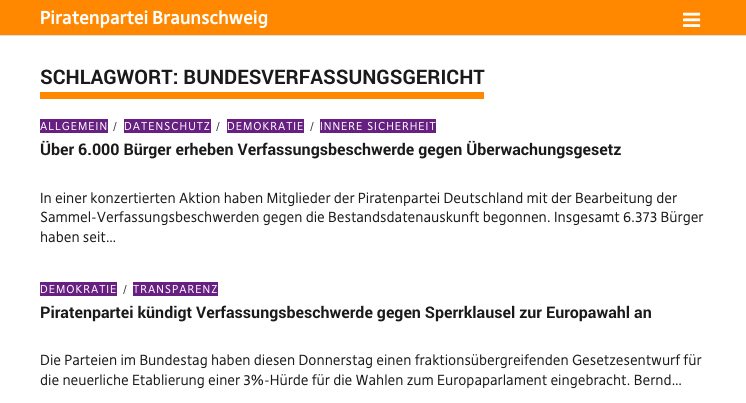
#include <cairo.h>
#include <math.h>
#include <stddef.h>

typedef struct { double x, y; const char *s; } line_t;

static void ink(cairo_t *ctx, unsigned color) {
    cairo_set_source_rgb(ctx, (color >> 16) / 255.0, (color >> 8 & 255) / 255.0, (color & 255) / 255.0);
}

static void write_spaced(cairo_t *ctx, double x, double y, const char *s, double letter, double word) {
    cairo_move_to(ctx, x, y);
    while (*s) {
        char ch[5] = {0};
        int n = 0;
        do ch[n++] = *s++; while ((*s & 0xC0) == 0x80);
        cairo_show_text(ctx, ch);
        cairo_rel_move_to(ctx, letter + word * (*ch == ' '), 0);
    }
}

static void paste(cairo_t *ctx, const char *path, double x, double y, double w, double h) {
    cairo_surface_t *image = cairo_image_surface_create_from_png(path);
    cairo_save(ctx);
    cairo_set_source_surface(ctx, image, x, y);
    cairo_rectangle(ctx, x, y, w, h);
    cairo_fill(ctx);
    cairo_restore(ctx);
    cairo_surface_destroy(image);
}

int main(void) {
    cairo_surface_t *surface = cairo_image_surface_create(CAIRO_FORMAT_RGB24, 746, 403);
    cairo_t *ctx = cairo_create(surface);
    cairo_font_options_t *options = cairo_font_options_create();
    cairo_font_options_set_hint_metrics(options, CAIRO_HINT_METRICS_OFF);
    cairo_font_options_set_hint_style(options, CAIRO_HINT_STYLE_NONE);
    cairo_set_font_options(ctx, options);
    cairo_set_miter_limit(ctx, 4);
    ink(ctx, 0xFFFFFF);
    cairo_paint(ctx);
    ink(ctx, 0xFF8800);
    cairo_rectangle(ctx, 0, 0, 746, 35);
    cairo_fill(ctx);
    ink(ctx, 0xDDDDDD);
    cairo_rectangle(ctx, 0, 35, 746, 1);
    cairo_fill(ctx);
    cairo_select_font_face(ctx, "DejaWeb", CAIRO_FONT_SLANT_NORMAL, CAIRO_FONT_WEIGHT_BOLD);
    cairo_set_font_size(ctx, 18);
    ink(ctx, 0xFFFFFF);
    cairo_move_to(ctx, 40, 24);
    cairo_show_text(ctx, "Piratenpartei Braunschweig");
    paste(ctx, "media/1.png", 683, 12, 18, 15);
    ink(ctx, 0xFF8800);
    cairo_rectangle(ctx, 40, 92, 444, 7);
    cairo_fill(ctx);
    cairo_select_font_face(ctx, "roboto", CAIRO_FONT_SLANT_NORMAL, CAIRO_FONT_WEIGHT_BOLD);
    cairo_set_font_size(ctx, 20);
    ink(ctx, 0x1A1A1A);
    cairo_move_to(ctx, 40, 84);
    cairo_show_text(ctx, "SCHLAGWORT: BUNDESVERFASSUNGSGERICHT");
    ink(ctx, 0x672082);
    cairo_rectangle(ctx, 40, 119, 68, 14);
    cairo_fill(ctx);
    cairo_select_font_face(ctx, "DejaWeb", CAIRO_FONT_SLANT_NORMAL, CAIRO_FONT_WEIGHT_NORMAL);
    cairo_set_font_size(ctx, 11);
    ink(ctx, 0xFFFFFF);
    write_spaced(ctx, 40, 130, "ALLGEMEIN", 1, 0);
    ink(ctx, 0x2B2B2B);
    write_spaced(ctx, 113, 130, "/", 1, 0);
    ink(ctx, 0x672082);
    cairo_rectangle(ctx, 124, 119, 87, 14);
    cairo_fill(ctx);
    ink(ctx, 0xFFFFFF);
    write_spaced(ctx, 124, 130, "DATENSCHUTZ", 1, 0);
    ink(ctx, 0x2B2B2B);
    write_spaced(ctx, 216, 130, "/", 1, 0);
    ink(ctx, 0x672082);
    cairo_rectangle(ctx, 227, 119, 77, 14);
    cairo_fill(ctx);
    ink(ctx, 0xFFFFFF);
    write_spaced(ctx, 227, 130, "DEMOKRATIE", 1, 0);
    ink(ctx, 0x2B2B2B);
    write_spaced(ctx, 310, 130, "/", 1, 0);
    ink(ctx, 0x672082);
    cairo_rectangle(ctx, 320, 119, 116, 14);
    cairo_fill(ctx);
    ink(ctx, 0xFFFFFF);
    write_spaced(ctx, 320, 130, "INNERE SICHERHEIT", 1, 0);
    cairo_select_font_face(ctx, "roboto", CAIRO_FONT_SLANT_NORMAL, CAIRO_FONT_WEIGHT_BOLD);
    cairo_set_font_size(ctx, 16);
    ink(ctx, 0x1A1A1A);
    cairo_move_to(ctx, 40, 155);
    cairo_show_text(ctx, "Über 6.000 Bürger erheben Verfassungsbeschwerde gegen Überwachungsgesetz");
    cairo_select_font_face(ctx, "DejaWeb", CAIRO_FONT_SLANT_NORMAL, CAIRO_FONT_WEIGHT_NORMAL);
    cairo_set_font_size(ctx, 14);
    {
        static const line_t items[] = {
            {40, 203, "In einer konzertierten Aktion haben Mitglieder der Piratenpartei Deutschland mit der Bearbeitung der"},
            {40, 222, "Sammel-Verfassungsbeschwerden gegen die Bestandsdatenauskunft begonnen. Insgesamt 6.373 Bürger"},
            {40, 242, "haben seit…"},
        };
        for (size_t i = 0; i < sizeof items / sizeof *items; i++) {
            cairo_move_to(ctx, items[i].x, items[i].y);
            cairo_show_text(ctx, items[i].s);
        }
    }
    ink(ctx, 0x672082);
    cairo_rectangle(ctx, 40, 282, 77, 14);
    cairo_fill(ctx);
    cairo_set_font_size(ctx, 11);
    ink(ctx, 0xFFFFFF);
    write_spaced(ctx, 40, 293, "DEMOKRATIE", 1, 0);
    ink(ctx, 0x2B2B2B);
    write_spaced(ctx, 123, 293, "/", 1, 0);
    ink(ctx, 0x672082);
    cairo_rectangle(ctx, 133, 282, 85, 14);
    cairo_fill(ctx);
    ink(ctx, 0xFFFFFF);
    write_spaced(ctx, 133, 293, "TRANSPARENZ", 1, 0);
    cairo_select_font_face(ctx, "roboto", CAIRO_FONT_SLANT_NORMAL, CAIRO_FONT_WEIGHT_BOLD);
    cairo_set_font_size(ctx, 16);
    ink(ctx, 0x1A1A1A);
    cairo_move_to(ctx, 40, 318);
    cairo_show_text(ctx, "Piratenpartei kündigt Verfassungsbeschwerde gegen Sperrklausel zur Europawahl an");
    cairo_select_font_face(ctx, "DejaWeb", CAIRO_FONT_SLANT_NORMAL, CAIRO_FONT_WEIGHT_NORMAL);
    cairo_set_font_size(ctx, 14);
    cairo_move_to(ctx, 40, 365);
    cairo_show_text(ctx, "Die Parteien im Bundestag haben diesen Donnerstag einen fraktionsübergreifenden Gesetzesentwurf für");
    cairo_move_to(ctx, 40, 385);
    cairo_show_text(ctx, "die neuerliche Etablierung einer 3%-Hürde für die Wahlen zum Europaparlament eingebracht. Bernd…");
    cairo_surface_write_to_png(surface, "image.png");
    cairo_font_options_destroy(options);
    cairo_destroy(ctx);
    cairo_surface_destroy(surface);
    return 0;
}
